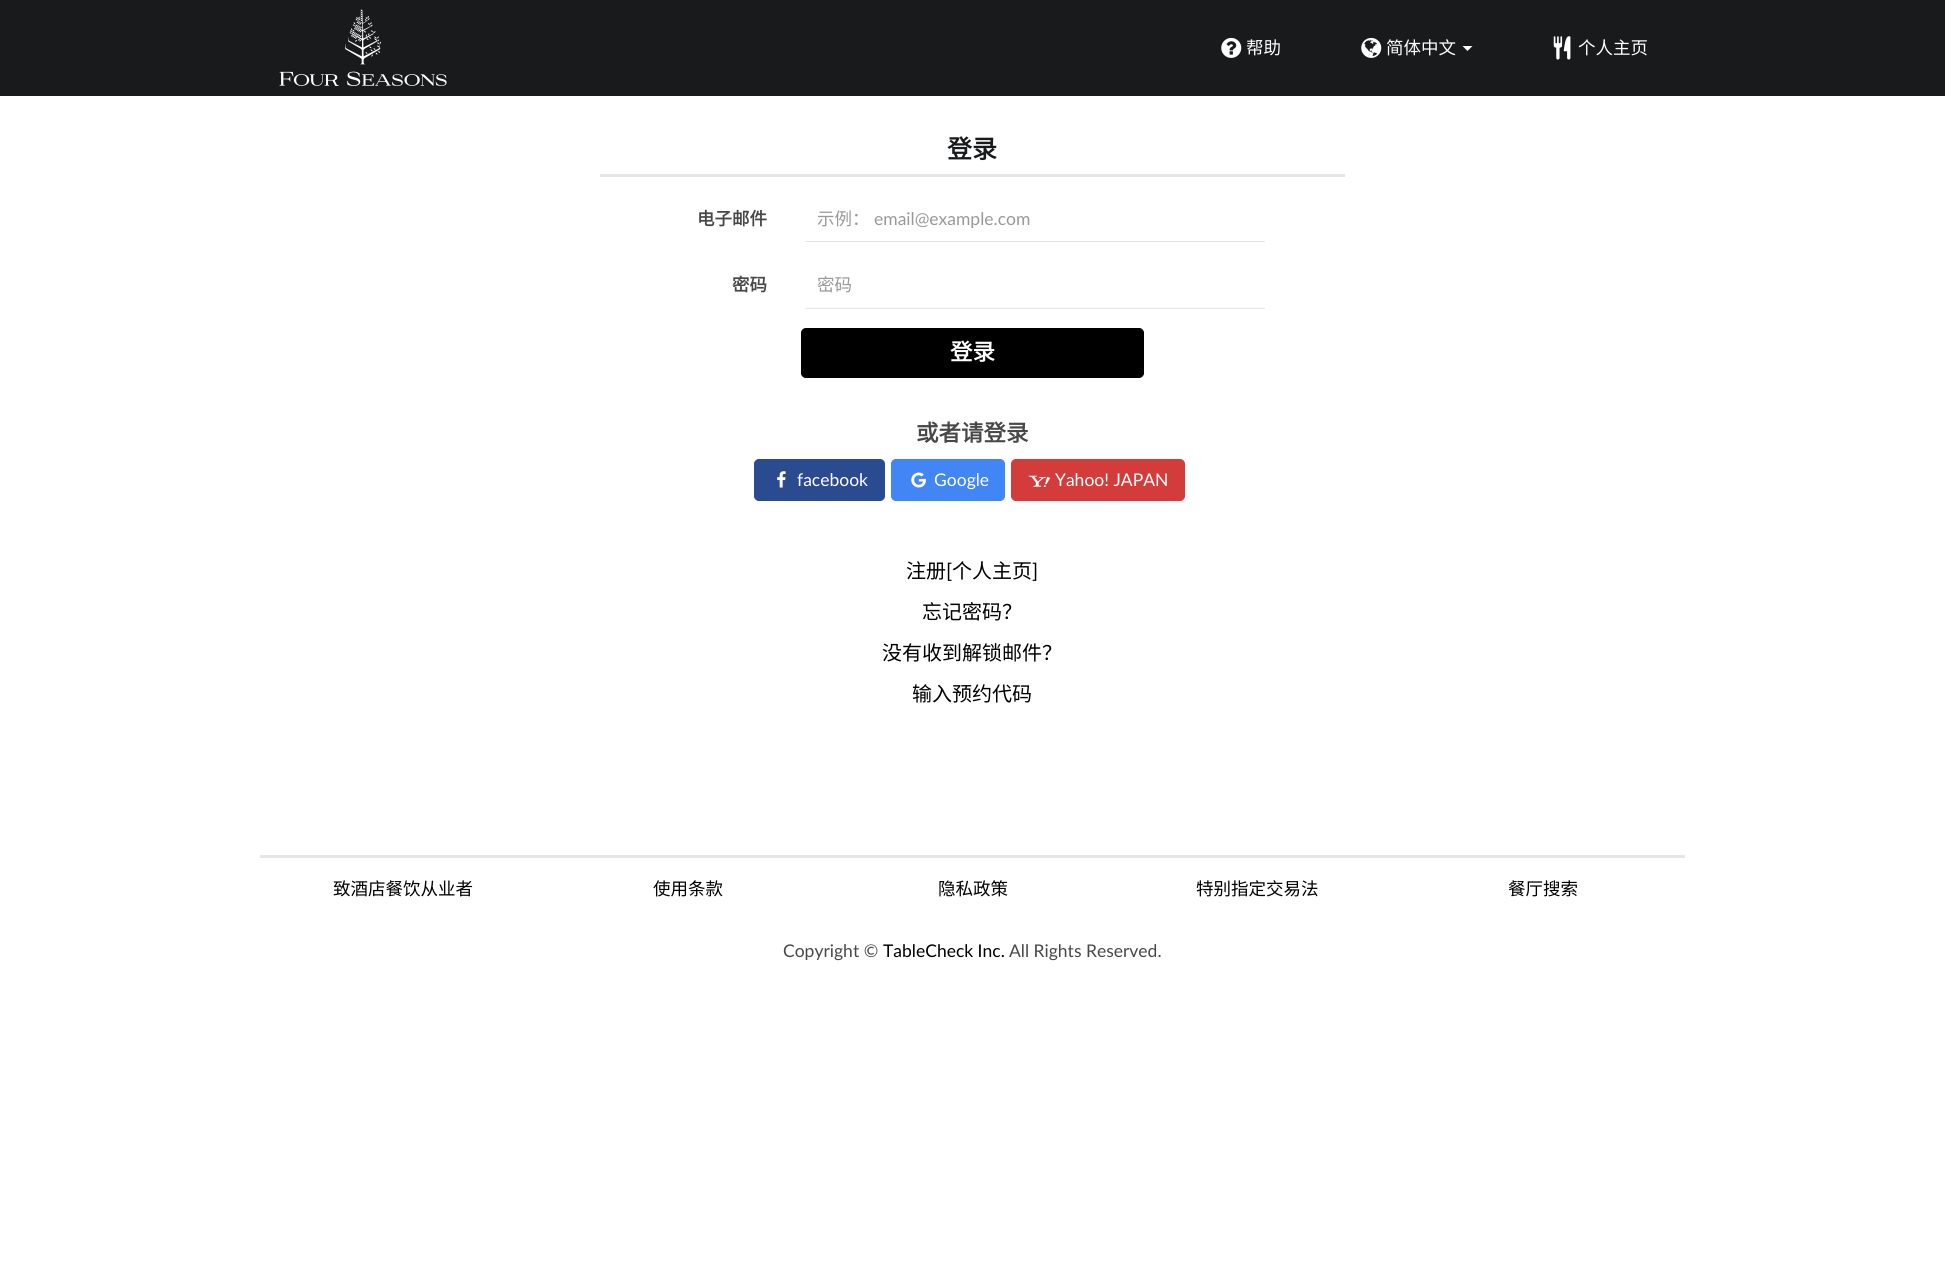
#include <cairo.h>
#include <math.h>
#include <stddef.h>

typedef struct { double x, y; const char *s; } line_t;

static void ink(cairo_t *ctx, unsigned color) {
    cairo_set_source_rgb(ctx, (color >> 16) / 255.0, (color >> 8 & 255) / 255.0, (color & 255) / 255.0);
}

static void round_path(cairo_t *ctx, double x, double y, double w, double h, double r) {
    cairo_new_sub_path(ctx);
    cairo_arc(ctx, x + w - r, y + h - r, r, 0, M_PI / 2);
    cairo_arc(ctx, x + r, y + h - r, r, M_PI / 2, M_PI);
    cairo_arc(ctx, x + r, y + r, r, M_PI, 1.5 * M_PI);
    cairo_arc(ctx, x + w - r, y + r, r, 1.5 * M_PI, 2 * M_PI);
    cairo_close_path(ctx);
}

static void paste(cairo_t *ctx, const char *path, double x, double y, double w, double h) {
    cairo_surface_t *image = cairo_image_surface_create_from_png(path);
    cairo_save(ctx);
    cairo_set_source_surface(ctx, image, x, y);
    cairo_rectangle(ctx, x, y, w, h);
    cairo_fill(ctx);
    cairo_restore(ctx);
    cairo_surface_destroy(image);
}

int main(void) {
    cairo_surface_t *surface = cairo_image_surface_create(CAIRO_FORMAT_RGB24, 1945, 1266);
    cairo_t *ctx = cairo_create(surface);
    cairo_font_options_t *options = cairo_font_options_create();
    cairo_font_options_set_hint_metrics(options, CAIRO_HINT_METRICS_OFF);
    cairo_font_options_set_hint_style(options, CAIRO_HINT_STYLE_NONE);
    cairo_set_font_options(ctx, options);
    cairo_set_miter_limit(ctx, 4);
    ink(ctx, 0xFFFFFF);
    cairo_paint(ctx);
    ink(ctx, 0x181A1B);
    cairo_rectangle(ctx, 0, 0, 1945, 96);
    cairo_fill(ctx);
    paste(ctx, "media/1.png", 279, 9, 168, 77);
    paste(ctx, "media/2.png", 1221, 37, 21, 21);
    cairo_select_font_face(ctx, "Noto Sans CJK SC", CAIRO_FONT_SLANT_NORMAL, CAIRO_FONT_WEIGHT_NORMAL);
    cairo_set_font_size(ctx, 17.5);
    ink(ctx, 0xFFFFFF);
    cairo_move_to(ctx, 1246, 54);
    cairo_show_text(ctx, "帮助");
    paste(ctx, "media/3.png", 1361, 37, 21, 21);
    cairo_move_to(ctx, 1386, 54);
    cairo_show_text(ctx, "简体中文");
    cairo_new_path(ctx);
    cairo_move_to(ctx, 1462.5, 46);
    cairo_line_to(ctx, 1472.5, 46);
    cairo_line_to(ctx, 1467.5, 51);
    cairo_close_path(ctx);
    cairo_fill(ctx);
    paste(ctx, "media/4.png", 1553, 36, 18, 24);
    cairo_move_to(ctx, 1578, 54);
    cairo_show_text(ctx, "个人主页");
    ink(ctx, 0xE6E6E6);
    cairo_rectangle(ctx, 600, 174, 745, 3);
    cairo_fill(ctx);
    cairo_select_font_face(ctx, "Noto Sans CJK SC", CAIRO_FONT_SLANT_NORMAL, CAIRO_FONT_WEIGHT_BOLD);
    cairo_set_font_size(ctx, 25);
    ink(ctx, 0x181A1B);
    cairo_move_to(ctx, 947, 158);
    cairo_show_text(ctx, "登录");
    cairo_set_font_size(ctx, 17.5);
    ink(ctx, 0x484848);
    cairo_move_to(ctx, 697, 225);
    cairo_show_text(ctx, "电子邮件");
    ink(ctx, 0xE6E6E6);
    cairo_rectangle(ctx, 805, 241, 460, 1);
    cairo_fill(ctx);
    cairo_select_font_face(ctx, "Noto Sans CJK SC", CAIRO_FONT_SLANT_NORMAL, CAIRO_FONT_WEIGHT_NORMAL);
    ink(ctx, 0x999999);
    cairo_move_to(ctx, 817, 225);
    cairo_show_text(ctx, "示例：");
    cairo_select_font_face(ctx, "Lato", CAIRO_FONT_SLANT_NORMAL, CAIRO_FONT_WEIGHT_NORMAL);
    cairo_move_to(ctx, 874, 225);
    cairo_show_text(ctx, "email@example.com");
    cairo_select_font_face(ctx, "Noto Sans CJK SC", CAIRO_FONT_SLANT_NORMAL, CAIRO_FONT_WEIGHT_BOLD);
    ink(ctx, 0x484848);
    cairo_move_to(ctx, 732, 291);
    cairo_show_text(ctx, "密码");
    ink(ctx, 0xE6E6E6);
    cairo_rectangle(ctx, 805, 308, 460, 1);
    cairo_fill(ctx);
    cairo_select_font_face(ctx, "Noto Sans CJK SC", CAIRO_FONT_SLANT_NORMAL, CAIRO_FONT_WEIGHT_NORMAL);
    ink(ctx, 0x999999);
    cairo_move_to(ctx, 817, 291);
    cairo_show_text(ctx, "密码");
    ink(ctx, 0x000000);
    round_path(ctx, 801.5, 328.5, 342, 49, 4.5);
    cairo_fill_preserve(ctx);
    cairo_set_line_width(ctx, 1);
    cairo_stroke(ctx);
    cairo_select_font_face(ctx, "Noto Sans CJK SC", CAIRO_FONT_SLANT_NORMAL, CAIRO_FONT_WEIGHT_BOLD);
    cairo_set_font_size(ctx, 22.5);
    ink(ctx, 0xFFFFFF);
    cairo_move_to(ctx, 950, 360);
    cairo_show_text(ctx, "登录");
    ink(ctx, 0x484848);
    cairo_move_to(ctx, 916, 441);
    cairo_show_text(ctx, "或者请登录");
    ink(ctx, 0x2B4B90);
    round_path(ctx, 754.5, 459.5, 130, 41, 4.5);
    cairo_fill_preserve(ctx);
    cairo_stroke(ctx);
    paste(ctx, "media/5.png", 777, 471, 9, 17);
    cairo_select_font_face(ctx, "Lato", CAIRO_FONT_SLANT_NORMAL, CAIRO_FONT_WEIGHT_NORMAL);
    cairo_set_font_size(ctx, 17.5);
    ink(ctx, 0xFFFFFF);
    cairo_move_to(ctx, 797, 486);
    cairo_show_text(ctx, "facebook");
    ink(ctx, 0x4285F4);
    round_path(ctx, 891.5, 459.5, 113, 41, 4.5);
    cairo_fill_preserve(ctx);
    cairo_stroke(ctx);
    paste(ctx, "media/6.png", 911, 472, 15, 16);
    ink(ctx, 0xFFFFFF);
    cairo_move_to(ctx, 934, 486);
    cairo_show_text(ctx, "Google");
    ink(ctx, 0xD43C3C);
    round_path(ctx, 1011.5, 459.5, 173, 41, 4.5);
    cairo_fill_preserve(ctx);
    cairo_stroke(ctx);
    paste(ctx, "media/7.png", 1028, 475, 23, 13);
    ink(ctx, 0xFFFFFF);
    cairo_move_to(ctx, 1055, 486);
    cairo_show_text(ctx, "Yahoo! JAPAN");
    cairo_select_font_face(ctx, "Noto Sans CJK SC", CAIRO_FONT_SLANT_NORMAL, CAIRO_FONT_WEIGHT_NORMAL);
    cairo_set_font_size(ctx, 20);
    ink(ctx, 0x000000);
    cairo_move_to(ctx, 906, 578);
    cairo_show_text(ctx, "注册");
    cairo_select_font_face(ctx, "Lato", CAIRO_FONT_SLANT_NORMAL, CAIRO_FONT_WEIGHT_NORMAL);
    cairo_move_to(ctx, 946, 578);
    cairo_show_text(ctx, "[");
    cairo_select_font_face(ctx, "Noto Sans CJK SC", CAIRO_FONT_SLANT_NORMAL, CAIRO_FONT_WEIGHT_NORMAL);
    cairo_move_to(ctx, 952, 578);
    cairo_show_text(ctx, "个人主页");
    cairo_select_font_face(ctx, "Lato", CAIRO_FONT_SLANT_NORMAL, CAIRO_FONT_WEIGHT_NORMAL);
    cairo_move_to(ctx, 1032, 578);
    cairo_show_text(ctx, "]");
    cairo_select_font_face(ctx, "Noto Sans CJK SC", CAIRO_FONT_SLANT_NORMAL, CAIRO_FONT_WEIGHT_NORMAL);
    {
        static const line_t items[] = {
            {922, 619, "忘记密码？"},
            {882, 660, "没有收到解锁邮件？"},
            {912, 701, "输入预约代码"},
        };
        for (size_t i = 0; i < sizeof items / sizeof *items; i++) {
            cairo_move_to(ctx, items[i].x, items[i].y);
            cairo_show_text(ctx, items[i].s);
        }
    }
    ink(ctx, 0xE6E6E6);
    cairo_rectangle(ctx, 260, 855, 1425, 3);
    cairo_fill(ctx);
    cairo_set_font_size(ctx, 17.5);
    ink(ctx, 0x000000);
    {
        static const line_t items[] = {
            {333, 895, "致酒店餐饮从业者"},
            {653, 895, "使用条款"},
            {938, 895, "隐私政策"},
            {1196, 895, "特别指定交易法"},
            {1508, 895, "餐厅搜索"},
        };
        for (size_t i = 0; i < sizeof items / sizeof *items; i++) {
            cairo_move_to(ctx, items[i].x, items[i].y);
            cairo_show_text(ctx, items[i].s);
        }
    }
    cairo_select_font_face(ctx, "Lato", CAIRO_FONT_SLANT_NORMAL, CAIRO_FONT_WEIGHT_NORMAL);
    ink(ctx, 0x484848);
    cairo_move_to(ctx, 783, 957);
    cairo_show_text(ctx, "Copyright ©");
    ink(ctx, 0x000000);
    cairo_move_to(ctx, 883, 957);
    cairo_show_text(ctx, "TableCheck Inc.");
    ink(ctx, 0x484848);
    cairo_move_to(ctx, 1009, 957);
    cairo_show_text(ctx, "All Rights Reserved.");
    cairo_surface_write_to_png(surface, "image.png");
    cairo_font_options_destroy(options);
    cairo_destroy(ctx);
    cairo_surface_destroy(surface);
    return 0;
}
